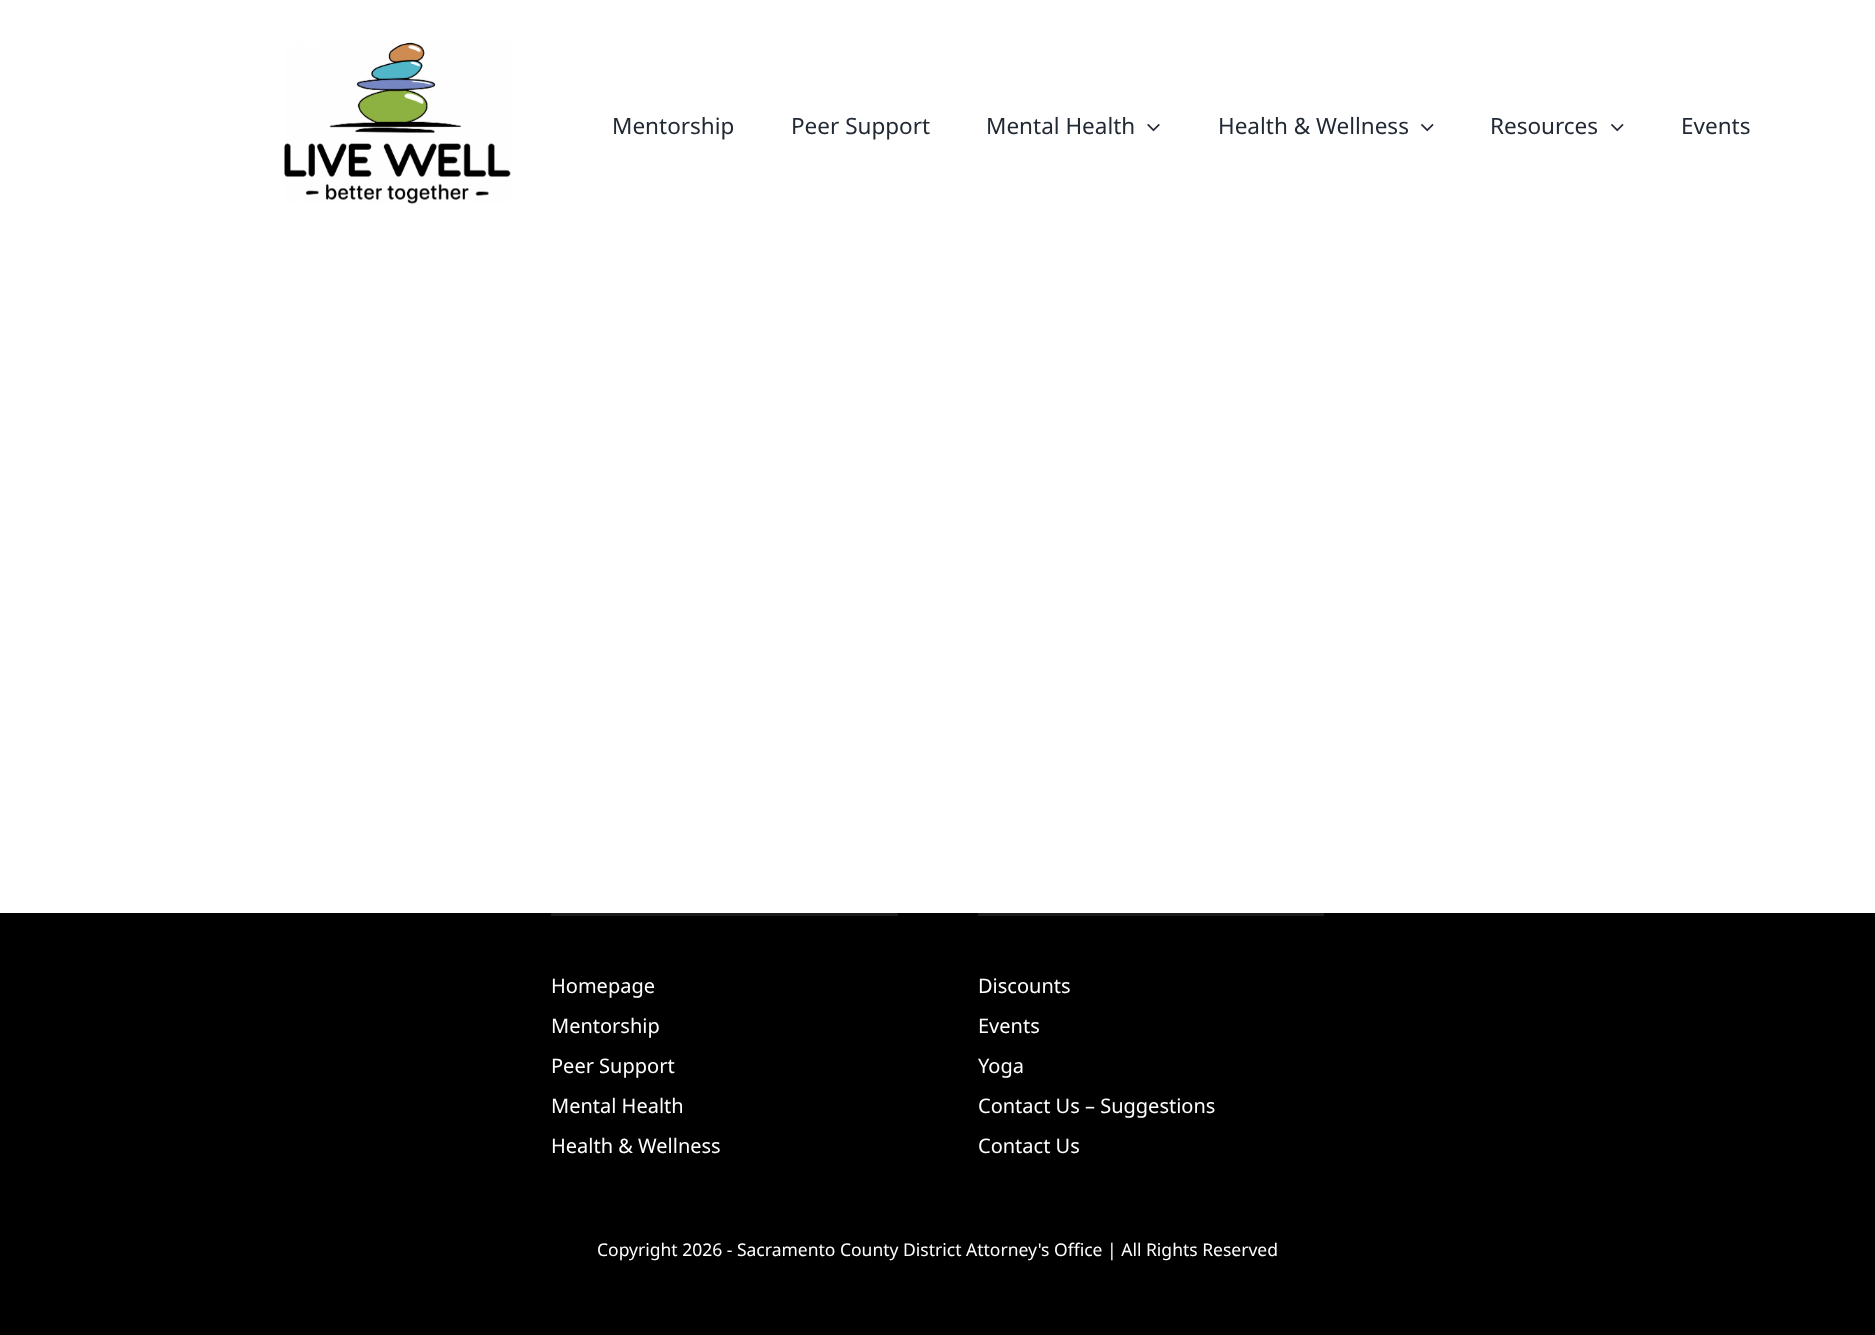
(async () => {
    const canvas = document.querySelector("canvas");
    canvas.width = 1875;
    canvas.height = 1335;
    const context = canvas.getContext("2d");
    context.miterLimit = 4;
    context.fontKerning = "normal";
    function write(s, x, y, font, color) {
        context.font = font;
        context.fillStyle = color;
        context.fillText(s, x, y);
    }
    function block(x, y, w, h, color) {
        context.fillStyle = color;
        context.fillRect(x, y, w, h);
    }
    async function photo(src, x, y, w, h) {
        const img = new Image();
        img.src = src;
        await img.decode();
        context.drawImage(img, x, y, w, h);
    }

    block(0, 0, 1875, 1335, "rgb(255, 255, 255)");
    await photo("media/1.png", 284, 42, 227, 162);
    write("Mentorship", 612, 134, "22.5px Noto Sans", "rgb(33, 41, 52)");
    write("Peer Support", 791, 134, "22.5px Noto Sans", "rgb(33, 41, 52)");
    write("Mental Health", 986, 134, "22.5px Noto Sans", "rgb(33, 41, 52)");
    await photo("media/2.png", 1147, 124, 13, 8);
    write("Health & Wellness", 1218, 134, "22.5px Noto Sans", "rgb(33, 41, 52)");
    await photo("media/3.png", 1421, 124, 13, 8);
    write("Resources", 1490, 134, "22.5px Noto Sans", "rgb(33, 41, 52)");
    await photo("media/3.png", 1611, 124, 13, 8);
    write("Events", 1681, 134, "22.5px Noto Sans", "rgb(33, 41, 52)");
    block(0, 913, 1875, 422, "rgb(0, 0, 0)");
    block(551, 913, 347, 3, "rgb(26, 26, 26)");
    write("Homepage", 551, 993, "20px Noto Sans", "rgb(255, 255, 255)");
    write("Mentorship", 551, 1033, "20px Noto Sans", "rgb(255, 255, 255)");
    write("Peer Support", 551, 1073, "20px Noto Sans", "rgb(255, 255, 255)");
    write("Mental Health", 551, 1113, "20px Noto Sans", "rgb(255, 255, 255)");
    write("Health & Wellness", 551, 1153, "20px Noto Sans", "rgb(255, 255, 255)");
    block(978, 913, 346, 3, "rgb(26, 26, 26)");
    write("Discounts", 978, 993, "20px Noto Sans", "rgb(255, 255, 255)");
    write("Events", 978, 1033, "20px Noto Sans", "rgb(255, 255, 255)");
    write("Yoga", 978, 1073, "20px Noto Sans", "rgb(255, 255, 255)");
    write("Contact Us – Suggestions", 978, 1113, "20px Noto Sans", "rgb(255, 255, 255)");
    write("Contact Us", 978, 1153, "20px Noto Sans", "rgb(255, 255, 255)");
    write("Copyright 2026 - Sacramento County District Attorney's Office | All Rights Reserved", 597, 1256, "17.5px Noto Sans", "rgb(255, 255, 255)");
})();
